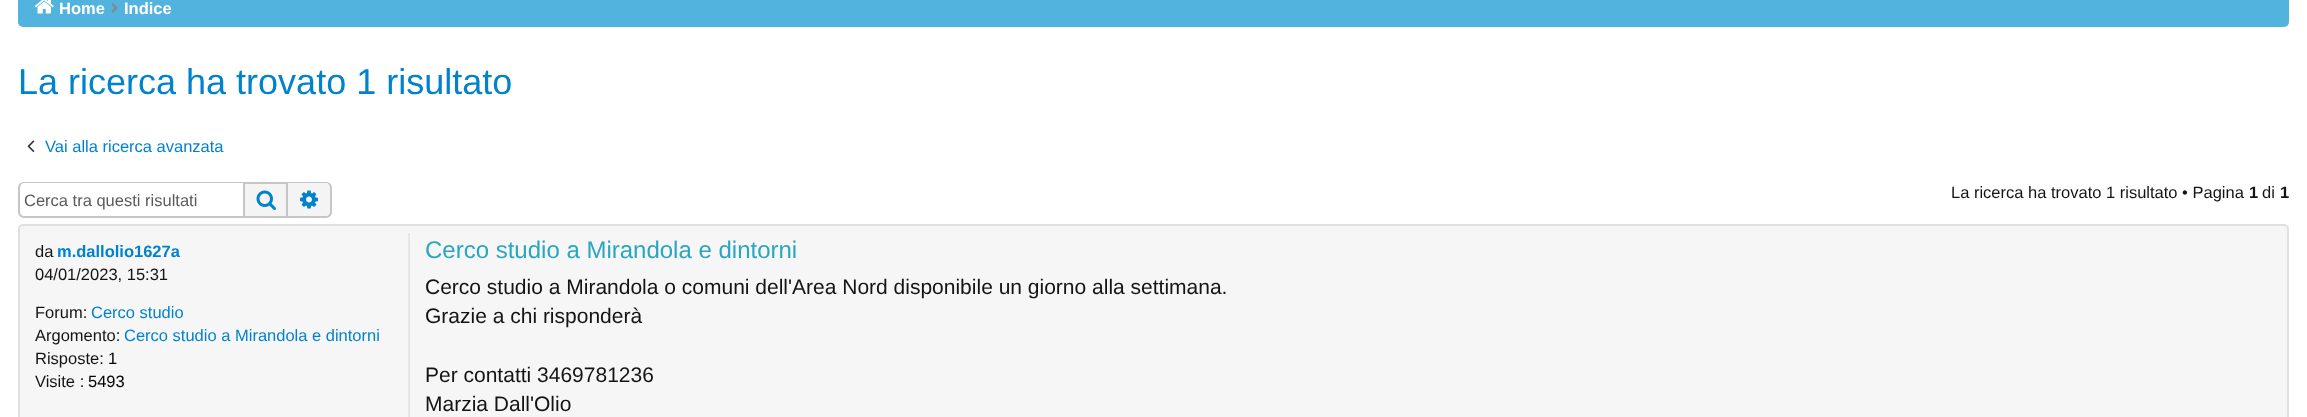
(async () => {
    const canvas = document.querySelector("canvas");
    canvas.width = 2307;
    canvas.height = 417;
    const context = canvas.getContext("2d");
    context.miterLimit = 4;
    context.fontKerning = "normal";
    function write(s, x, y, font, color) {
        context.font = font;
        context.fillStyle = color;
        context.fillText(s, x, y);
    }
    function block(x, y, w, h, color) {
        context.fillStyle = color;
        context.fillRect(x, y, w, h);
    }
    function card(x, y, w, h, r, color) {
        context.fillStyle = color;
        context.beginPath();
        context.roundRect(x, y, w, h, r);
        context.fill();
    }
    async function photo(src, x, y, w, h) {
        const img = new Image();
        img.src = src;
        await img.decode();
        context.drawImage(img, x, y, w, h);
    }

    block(0, 0, 2307, 417, "rgb(255, 255, 255)");
    card(18, -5, 2271, 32, 5, "rgb(82, 179, 222)");
    await photo("media/1.png", 34, 0, 20, 14);
    write("Home", 59, 14, "bold 16.5px Liberation Sans", "rgb(255, 255, 255)");
    await photo("media/2.png", 111, 3, 7, 10);
    write("Indice", 124, 14, "bold 16.5px Liberation Sans", "rgb(255, 255, 255)");
    write("La ricerca ha trovato 1 risultato", 18, 94, "36px Liberation Sans", "rgb(0, 130, 205)");
    await photo("media/3.png", 27, 140, 8, 12);
    write("Vai alla ricerca avanzata", 45, 152, "16.5px Liberation Sans", "rgb(0, 130, 205)");
    context.fillStyle = "rgb(198, 198, 198)";
    context.beginPath();
    context.moveTo(24, 182);
    context.lineTo(243, 182);
    context.lineTo(243, 218);
    context.lineTo(24, 218);
    context.bezierCurveTo(21, 218, 18, 215, 18, 212);
    context.lineTo(18, 188);
    context.bezierCurveTo(18, 184, 21, 182, 24, 182);
    context.closePath();
    context.moveTo(24, 183);
    context.lineTo(243, 183);
    context.lineTo(243, 216);
    context.lineTo(24, 216);
    context.bezierCurveTo(22, 216, 20, 214, 20, 212);
    context.lineTo(20, 188);
    context.bezierCurveTo(20, 185, 22, 183, 24, 183);
    context.closePath();
    context.fill("evenodd");
    write("Cerca tra questi risultati", 24, 206, "16.5px Liberation Sans", "rgb(91, 91, 91)");
    context.fillStyle = "rgb(244, 244, 244)";
    context.beginPath();
    context.rect(244, 183, 43, 34);
    context.fill();
    context.strokeStyle = "rgb(198, 198, 198)";
    context.lineWidth = 2;
    context.stroke();
    await photo("media/4.png", 256, 190, 20, 20);
    context.beginPath();
    context.roundRect(288, 183, 42, 33, [0, 5, 5, 0]);
    context.fill();
    context.fillStyle = "rgb(198, 198, 198)";
    context.beginPath();
    context.moveTo(288, 182);
    context.lineTo(326, 182);
    context.bezierCurveTo(329, 182, 332, 184, 332, 188);
    context.lineTo(332, 212);
    context.bezierCurveTo(332, 215, 329, 218, 326, 218);
    context.lineTo(288, 218);
    context.closePath();
    context.moveTo(288, 183);
    context.lineTo(326, 183);
    context.bezierCurveTo(328, 183, 330, 185, 330, 188);
    context.lineTo(330, 212);
    context.bezierCurveTo(330, 214, 328, 216, 326, 216);
    context.lineTo(288, 216);
    context.closePath();
    context.fill("evenodd");
    await photo("media/5.png", 300, 190, 18, 19);
    write("La ricerca ha trovato 1 risultato • Pagina", 1951, 198, "16.5px Liberation Sans", "rgb(20, 20, 20)");
    write("1", 2249, 198, "bold 16.5px Liberation Sans", "rgb(20, 20, 20)");
    write("di", 2262, 198, "16.5px Liberation Sans", "rgb(20, 20, 20)");
    write("1", 2280, 198, "bold 16.5px Liberation Sans", "rgb(20, 20, 20)");
    context.fillStyle = "rgb(246, 246, 246)";
    context.beginPath();
    context.roundRect(19, 225, 2269, 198, 4);
    context.fill();
    context.strokeStyle = "rgb(224, 224, 224)";
    context.stroke();
    block(408, 233, 2, 184, "rgb(231, 231, 231)");
    write("da", 35, 257, "16.5px Liberation Sans", "rgb(20, 20, 20)");
    write("m.dallolio1627a", 57, 257, "bold 16.5px Liberation Sans", "rgb(0, 130, 205)");
    write("04/01/2023, 15:31", 35, 280, "16.5px Liberation Sans", "rgb(20, 20, 20)");
    write("Forum:", 35, 318, "16.5px Liberation Sans", "rgb(20, 20, 20)");
    write("Cerco studio", 91, 318, "16.5px Liberation Sans", "rgb(0, 130, 205)");
    write("Argomento:", 35, 341, "16.5px Liberation Sans", "rgb(20, 20, 20)");
    write("Cerco studio a Mirandola e dintorni", 124, 341, "16.5px Liberation Sans", "rgb(0, 130, 205)");
    write("Risposte:", 35, 364, "16.5px Liberation Sans", "rgb(20, 20, 20)");
    write("1", 108, 364, "16.5px Liberation Sans", "rgb(0, 0, 0)");
    write("Visite :", 35, 387, "16.5px Liberation Sans", "rgb(20, 20, 20)");
    write("5493", 88, 387, "16.5px Liberation Sans", "rgb(0, 0, 0)");
    write("Cerco studio a Mirandola e dintorni", 425, 258, "24px Liberation Sans", "rgb(43, 166, 192)");
    write("Cerco studio a Mirandola o comuni dell'Area Nord disponibile un giorno alla settimana.", 425, 294, "21px Liberation Sans", "rgb(20, 20, 20)");
    write("Grazie a chi risponderà", 425, 323, "21px Liberation Sans", "rgb(20, 20, 20)");
    write("Per contatti 3469781236", 425, 382, "21px Liberation Sans", "rgb(20, 20, 20)");
    write("Marzia Dall'Olio", 425, 411, "21px Liberation Sans", "rgb(20, 20, 20)");
})();
